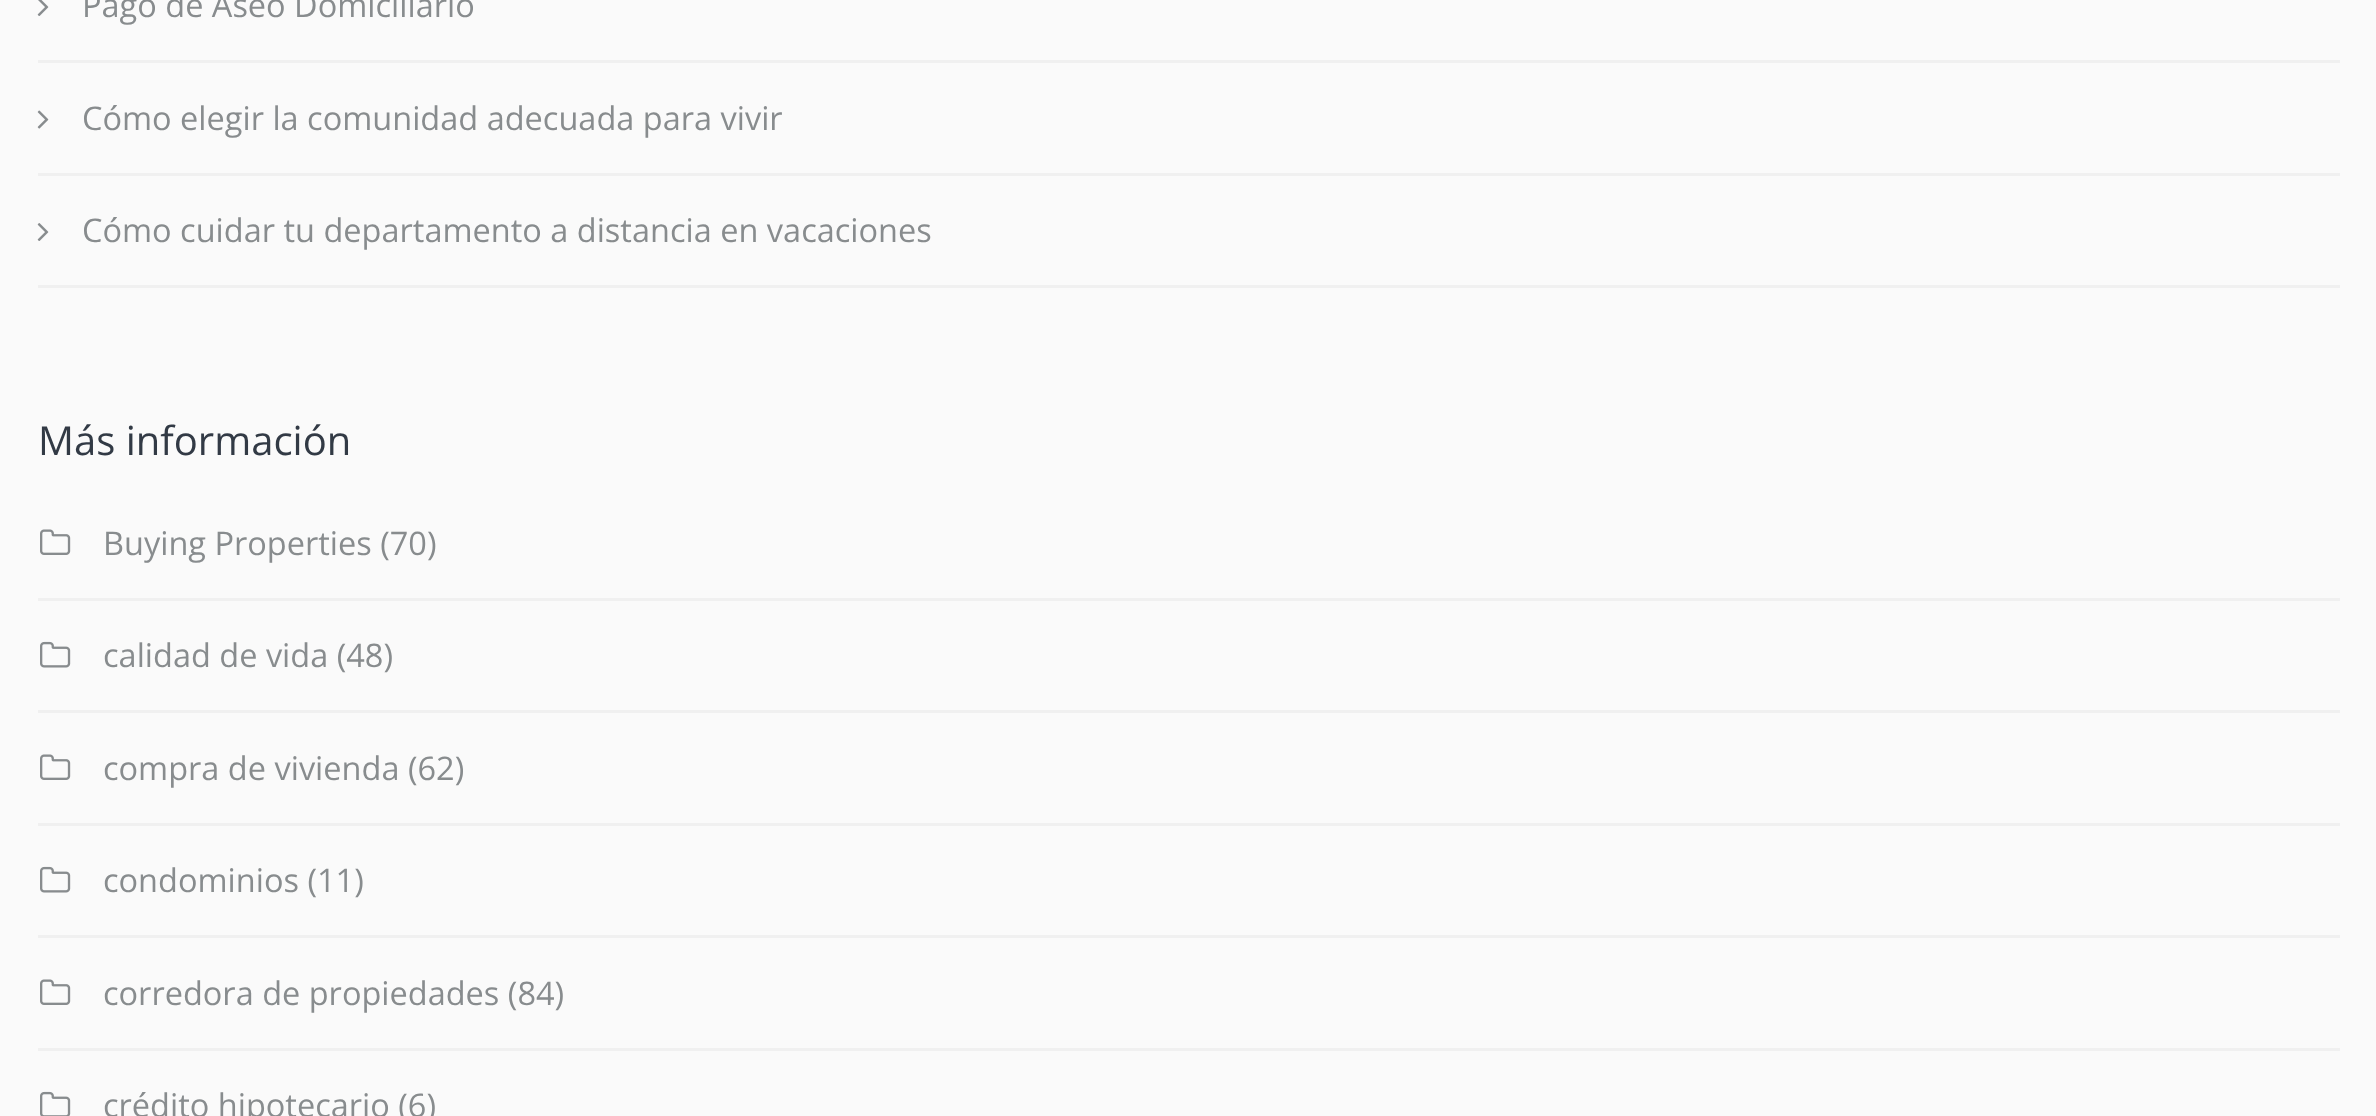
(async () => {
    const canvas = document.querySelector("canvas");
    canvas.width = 2376;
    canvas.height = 1116;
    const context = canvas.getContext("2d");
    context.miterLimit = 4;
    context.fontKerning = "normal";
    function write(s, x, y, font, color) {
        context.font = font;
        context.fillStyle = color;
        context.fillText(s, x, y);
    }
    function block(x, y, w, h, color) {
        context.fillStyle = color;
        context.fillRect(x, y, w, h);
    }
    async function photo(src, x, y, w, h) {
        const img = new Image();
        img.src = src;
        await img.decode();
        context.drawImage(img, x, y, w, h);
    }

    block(0, 0, 2376, 1116, "rgb(250, 250, 250)");
    block(38, 60, 2302, 3, "rgb(240, 240, 240)");
    await photo("media/1.png", 37, 0, 12, 16);
    write("Pago de Aseo Domiciliario", 82, 17, "32.5px Open Sans", "rgb(136, 140, 142)");
    block(38, 173, 2302, 3, "rgb(240, 240, 240)");
    await photo("media/2.png", 37, 110, 12, 19);
    write("Cómo elegir la comunidad adecuada para vivir", 82, 130, "32.5px Open Sans", "rgb(136, 140, 142)");
    block(38, 285, 2302, 3, "rgb(240, 240, 240)");
    await photo("media/3.png", 37, 223, 12, 18);
    write("Cómo cuidar tu departamento a distancia en vacaciones", 82, 242, "32.5px Open Sans", "rgb(136, 140, 142)");
    write("Más información", 38, 455, "40px Open Sans", "rgb(50, 58, 69)");
    block(38, 598, 2302, 3, "rgb(240, 240, 240)");
    await photo("media/4.png", 40, 529, 31, 26);
    write("Buying Properties (70)", 103, 555, "32.5px Open Sans", "rgb(136, 140, 142)");
    block(38, 710, 2302, 3, "rgb(240, 240, 240)");
    await photo("media/5.png", 40, 641, 31, 27);
    write("calidad de vida (48)", 103, 667, "32.5px Open Sans", "rgb(136, 140, 142)");
    block(38, 823, 2302, 3, "rgb(240, 240, 240)");
    await photo("media/4.png", 40, 754, 31, 26);
    write("compra de vivienda (62)", 103, 780, "32.5px Open Sans", "rgb(136, 140, 142)");
    block(38, 935, 2302, 3, "rgb(240, 240, 240)");
    await photo("media/5.png", 40, 866, 31, 27);
    write("condominios (11)", 103, 892, "32.5px Open Sans", "rgb(136, 140, 142)");
    block(38, 1048, 2302, 3, "rgb(240, 240, 240)");
    await photo("media/4.png", 40, 979, 31, 26);
    write("corredora de propiedades (84)", 103, 1005, "32.5px Open Sans", "rgb(136, 140, 142)");
    await photo("media/6.png", 40, 1091, 31, 25);
    write("crédito hipotecario (6)", 103, 1117, "32.5px Open Sans", "rgb(136, 140, 142)");
})();
